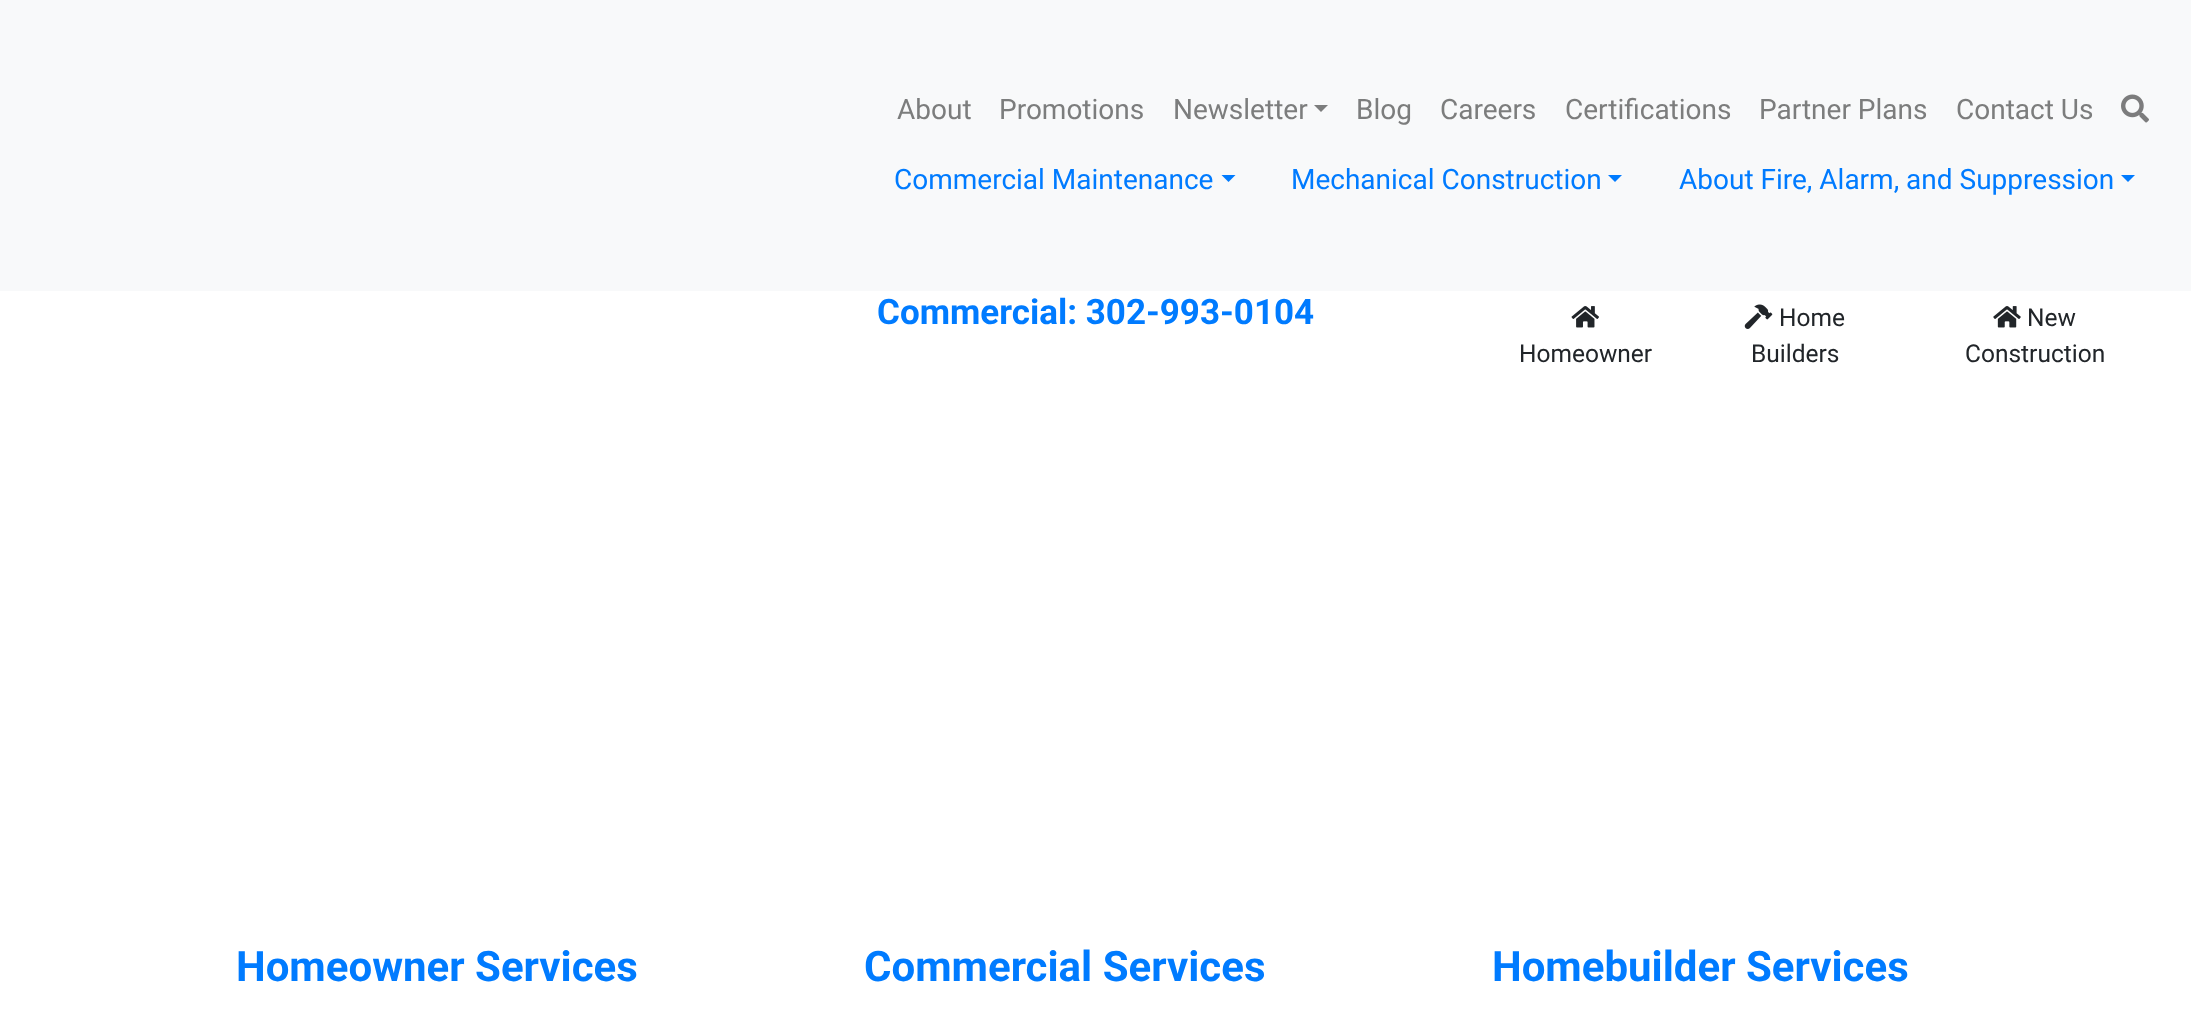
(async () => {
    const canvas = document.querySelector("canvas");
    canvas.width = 2191;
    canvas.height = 1031;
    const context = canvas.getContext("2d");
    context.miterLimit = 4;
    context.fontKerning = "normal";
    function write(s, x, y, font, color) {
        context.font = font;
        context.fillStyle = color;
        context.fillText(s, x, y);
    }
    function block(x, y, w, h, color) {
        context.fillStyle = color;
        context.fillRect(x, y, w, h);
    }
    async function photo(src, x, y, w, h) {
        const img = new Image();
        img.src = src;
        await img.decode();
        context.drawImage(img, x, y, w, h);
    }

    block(0, 0, 2191, 1031, "rgb(255, 255, 255)");
    block(0, 0, 2191, 291, "rgb(248, 249, 250)");
    write("About", 897, 119, "28px Roboto", "rgb(124, 125, 125)");
    write("Promotions", 999, 119, "28px Roboto", "rgb(124, 125, 125)");
    write("Newsletter", 1173, 119, "28px Roboto", "rgb(124, 125, 125)");
    context.beginPath();
    context.moveTo(1314, 105);
    context.lineTo(1328, 105);
    context.lineTo(1321, 112);
    context.closePath();
    context.fill();
    write("Blog", 1356, 119, "28px Roboto", "rgb(124, 125, 125)");
    write("Careers", 1440, 119, "28px Roboto", "rgb(124, 125, 125)");
    write("Certifications", 1565, 119, "28px Roboto", "rgb(124, 125, 125)");
    write("Partner Plans", 1759, 119, "28px Roboto", "rgb(124, 125, 125)");
    write("Contact Us", 1956, 119, "28px Roboto", "rgb(124, 125, 125)");
    await photo("media/1.png", 2121, 94, 28, 29);
    write("Commercial Maintenance", 894, 189, "28px Roboto", "rgb(0, 123, 255)");
    context.beginPath();
    context.moveTo(1221.5, 175);
    context.lineTo(1235.5, 175);
    context.lineTo(1228.5, 182);
    context.closePath();
    context.fill();
    write("Mechanical Construction", 1291, 189, "28px Roboto", "rgb(0, 123, 255)");
    context.beginPath();
    context.moveTo(1608, 175);
    context.lineTo(1622, 175);
    context.lineTo(1615, 182);
    context.closePath();
    context.fill();
    write("About Fire, Alarm, and Suppression", 1679, 189, "28px Roboto", "rgb(0, 123, 255)");
    context.beginPath();
    context.moveTo(2121, 175);
    context.lineTo(2135, 175);
    context.lineTo(2128, 182);
    context.closePath();
    context.fill();
    write("Commercial: 302-993-0104", 877, 324, "bold 35px Roboto", "rgb(0, 123, 255)");
    await photo("media/2.png", 1571, 306, 28, 22);
    write("Homeowner", 1519, 362, "24.5px Roboto", "rgb(33, 37, 41)");
    await photo("media/3.png", 1744, 304, 29, 25);
    write("Home", 1779, 326, "24.5px Roboto", "rgb(33, 37, 41)");
    write("Builders", 1751, 362, "24.5px Roboto", "rgb(33, 37, 41)");
    await photo("media/4.png", 1993, 306, 28, 22);
    write("New", 2027, 326, "24.5px Roboto", "rgb(33, 37, 41)");
    write("Construction", 1965, 362, "24.5px Roboto", "rgb(33, 37, 41)");
    write("Homeowner Services", 236, 981, "bold 42px Roboto", "rgb(0, 123, 255)");
    write("Commercial Services", 864, 981, "bold 42px Roboto", "rgb(0, 123, 255)");
    write("Homebuilder Services", 1492, 981, "bold 42px Roboto", "rgb(0, 123, 255)");
})();
